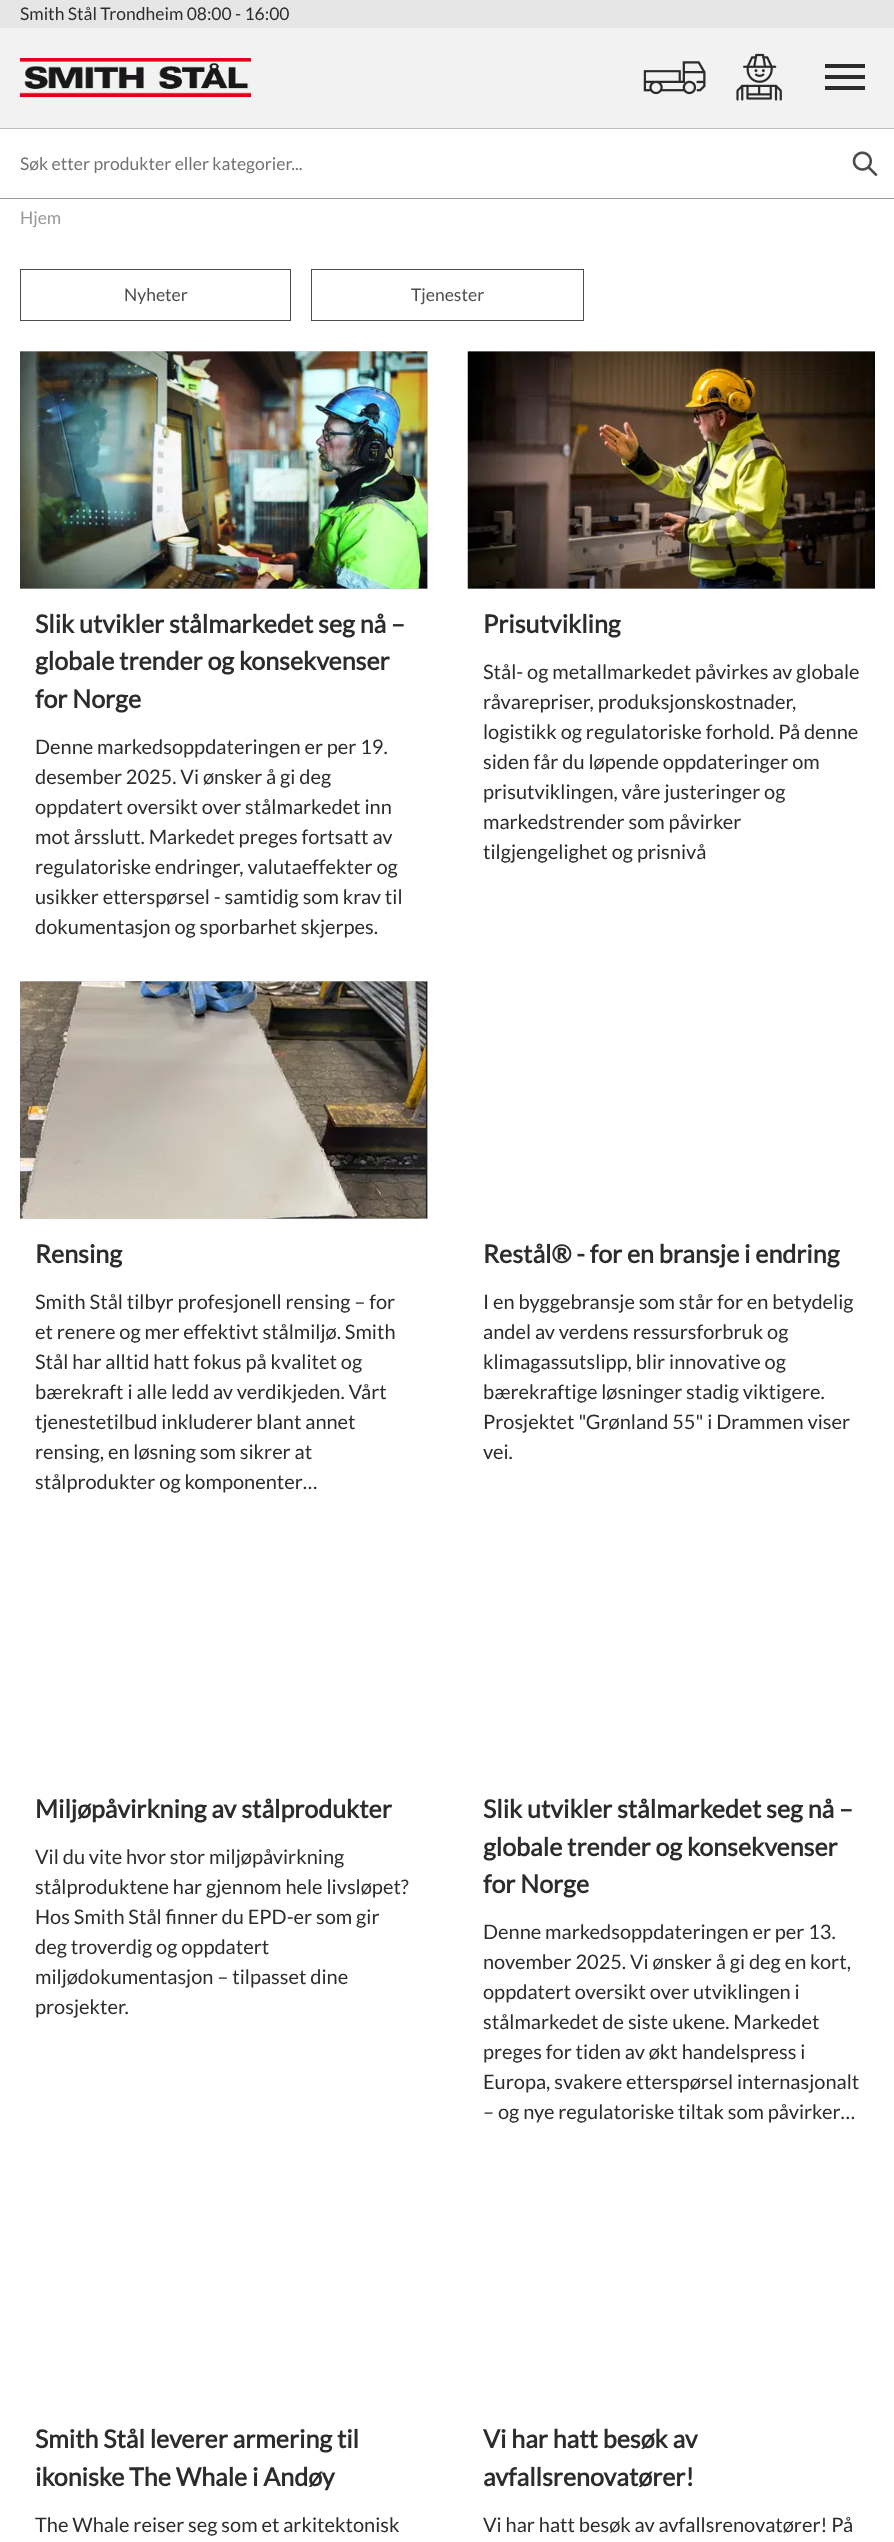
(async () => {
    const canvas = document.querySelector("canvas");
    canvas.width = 894;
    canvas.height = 2542;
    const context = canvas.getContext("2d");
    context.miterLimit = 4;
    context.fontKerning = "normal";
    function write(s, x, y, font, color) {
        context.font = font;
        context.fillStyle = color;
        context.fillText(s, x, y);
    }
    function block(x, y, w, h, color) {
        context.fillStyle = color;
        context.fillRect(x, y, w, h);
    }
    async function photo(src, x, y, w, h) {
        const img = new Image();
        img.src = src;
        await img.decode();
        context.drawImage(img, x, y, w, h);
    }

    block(0, 0, 894, 2542, "rgb(255, 255, 255)");
    block(0, 0, 894, 28, "rgb(230, 230, 230)");
    write("Smith Stål Trondheim 08:00 - 16:00", 20, 20, "17.5px Lato", "rgb(44, 44, 44)");
    block(0, 28, 894, 100, "rgb(242, 242, 242)");
    block(0, 128, 894, 1, "rgb(190, 191, 192)");
    await photo("media/1.png", 20, 58, 231, 40);
    await photo("media/2.png", 643, 61, 63, 34);
    await photo("media/3.png", 736, 53, 46, 48);
    context.fillStyle = "rgb(44, 44, 44)";
    context.beginPath();
    context.moveTo(865, 90);
    context.lineTo(865, 86);
    context.lineTo(825, 86);
    context.lineTo(825, 90);
    context.closePath();
    context.moveTo(865, 79);
    context.lineTo(865, 75);
    context.lineTo(825, 75);
    context.lineTo(825, 79);
    context.closePath();
    context.moveTo(825, 68);
    context.lineTo(865, 68);
    context.lineTo(865, 64);
    context.lineTo(825, 64);
    context.closePath();
    context.fill();
    block(0, 198, 894, 1, "rgb(153, 153, 153)");
    write("Søk etter produkter eller kategorier...", 20, 170, "17.5px Lato", "rgb(114, 114, 114)");
    await photo("media/4.png", 852, 151, 26, 25);
    write("Hjem", 20, 224, "17.5px Lato", "rgb(153, 153, 153)");
    context.strokeStyle = "rgb(77, 77, 77)";
    context.strokeRect(20.5, 269.5, 270, 51);
    write("Nyheter", 124, 301, "17.5px Lato", "rgb(77, 77, 77)");
    context.strokeRect(311.5, 269.5, 272, 51);
    write("Tjenester", 411, 301, "17.5px Lato", "rgb(77, 77, 77)");
    block(20, 351, 408, 238, "rgb(208, 208, 208)");
    await photo("media/5.png", 20, 351, 408, 238);
    write("Slik utvikler stålmarkedet seg nå –", 35, 633, "bold 25px Lato", "rgb(44, 44, 44)");
    write("globale trender og konsekvenser", 35, 670, "bold 25px Lato", "rgb(44, 44, 44)");
    write("for Norge", 35, 708, "bold 25px Lato", "rgb(44, 44, 44)");
    write("Denne markedsoppdateringen er per 19.", 35, 754, "20px Lato", "rgb(44, 44, 44)");
    write("desember 2025. Vi ønsker å gi deg", 35, 784, "20px Lato", "rgb(44, 44, 44)");
    write("oppdatert oversikt over stålmarkedet inn", 35, 814, "20px Lato", "rgb(44, 44, 44)");
    write("mot årsslutt. Markedet preges fortsatt av", 35, 844, "20px Lato", "rgb(44, 44, 44)");
    write("regulatoriske endringer, valutaeffekter og", 35, 874, "20px Lato", "rgb(44, 44, 44)");
    write("usikker etterspørsel - samtidig som krav til", 35, 904, "20px Lato", "rgb(44, 44, 44)");
    write("dokumentasjon og sporbarhet skjerpes.", 35, 934, "20px Lato", "rgb(44, 44, 44)");
    block(468, 351, 407, 238, "rgb(208, 208, 208)");
    await photo("media/6.png", 467, 351, 408, 238);
    write("Prisutvikling", 483, 633, "bold 25px Lato", "rgb(44, 44, 44)");
    write("Stål- og metallmarkedet påvirkes av globale", 483, 679, "20px Lato", "rgb(44, 44, 44)");
    write("råvarepriser, produksjonskostnader,", 483, 709, "20px Lato", "rgb(44, 44, 44)");
    write("logistikk og regulatoriske forhold. På denne", 483, 739, "20px Lato", "rgb(44, 44, 44)");
    write("siden får du løpende oppdateringer om", 483, 769, "20px Lato", "rgb(44, 44, 44)");
    write("prisutviklingen, våre justeringer og", 483, 799, "20px Lato", "rgb(44, 44, 44)");
    write("markedstrender som påvirker", 483, 829, "20px Lato", "rgb(44, 44, 44)");
    write("tilgjengelighet og prisnivå", 483, 859, "20px Lato", "rgb(44, 44, 44)");
    block(20, 981, 408, 238, "rgb(208, 208, 208)");
    await photo("media/7.png", 20, 981, 408, 238);
    write("Rensing", 35, 1263, "bold 25px Lato", "rgb(44, 44, 44)");
    write("Smith Stål tilbyr profesjonell rensing – for", 35, 1309, "20px Lato", "rgb(44, 44, 44)");
    write("et renere og mer effektivt stålmiljø. Smith", 35, 1339, "20px Lato", "rgb(44, 44, 44)");
    write("Stål har alltid hatt fokus på kvalitet og", 35, 1369, "20px Lato", "rgb(44, 44, 44)");
    write("bærekraft i alle ledd av verdikjeden. Vårt", 35, 1399, "20px Lato", "rgb(44, 44, 44)");
    write("tjenestetilbud inkluderer blant annet", 35, 1429, "20px Lato", "rgb(44, 44, 44)");
    write("rensing, en løsning som sikrer at", 35, 1459, "20px Lato", "rgb(44, 44, 44)");
    write("stålprodukter og komponenter…", 35, 1489, "20px Lato", "rgb(44, 44, 44)");
    write("Restål® - for en bransje i endring", 483, 1263, "bold 25px Lato", "rgb(44, 44, 44)");
    write("I en byggebransje som står for en betydelig", 483, 1309, "20px Lato", "rgb(44, 44, 44)");
    write("andel av verdens ressursforbruk og", 483, 1339, "20px Lato", "rgb(44, 44, 44)");
    write("klimagassutslipp, blir innovative og", 483, 1369, "20px Lato", "rgb(44, 44, 44)");
    write("bærekraftige løsninger stadig viktigere.", 483, 1399, "20px Lato", "rgb(44, 44, 44)");
    write("Prosjektet \"Grønland 55\" i Drammen viser", 483, 1429, "20px Lato", "rgb(44, 44, 44)");
    write("vei.", 483, 1459, "20px Lato", "rgb(44, 44, 44)");
    write("Miljøpåvirkning av stålprodukter", 35, 1818, "bold 25px Lato", "rgb(44, 44, 44)");
    write("Vil du vite hvor stor miljøpåvirkning", 35, 1864, "20px Lato", "rgb(44, 44, 44)");
    write("stålproduktene har gjennom hele livsløpet?", 35, 1894, "20px Lato", "rgb(44, 44, 44)");
    write("Hos Smith Stål finner du EPD-er som gir", 35, 1924, "20px Lato", "rgb(44, 44, 44)");
    write("deg troverdig og oppdatert", 35, 1954, "20px Lato", "rgb(44, 44, 44)");
    write("miljødokumentasjon – tilpasset dine", 35, 1984, "20px Lato", "rgb(44, 44, 44)");
    write("prosjekter.", 35, 2014, "20px Lato", "rgb(44, 44, 44)");
    write("Slik utvikler stålmarkedet seg nå –", 483, 1818, "bold 25px Lato", "rgb(44, 44, 44)");
    write("globale trender og konsekvenser", 483, 1856, "bold 25px Lato", "rgb(44, 44, 44)");
    write("for Norge", 483, 1893, "bold 25px Lato", "rgb(44, 44, 44)");
    write("Denne markedsoppdateringen er per 13.", 483, 1939, "20px Lato", "rgb(44, 44, 44)");
    write("november 2025. Vi ønsker å gi deg en kort,", 483, 1969, "20px Lato", "rgb(44, 44, 44)");
    write("oppdatert oversikt over utviklingen i", 483, 1999, "20px Lato", "rgb(44, 44, 44)");
    write("stålmarkedet de siste ukene. Markedet", 483, 2029, "20px Lato", "rgb(44, 44, 44)");
    write("preges for tiden av økt handelspress i", 483, 2059, "20px Lato", "rgb(44, 44, 44)");
    write("Europa, svakere etterspørsel internasjonalt", 483, 2089, "20px Lato", "rgb(44, 44, 44)");
    write("– og nye regulatoriske tiltak som påvirker…", 483, 2119, "20px Lato", "rgb(44, 44, 44)");
    write("Smith Stål leverer armering til", 35, 2448, "bold 25px Lato", "rgb(44, 44, 44)");
    write("ikoniske The Whale i Andøy", 35, 2486, "bold 25px Lato", "rgb(44, 44, 44)");
    write("The Whale reiser seg som et arkitektonisk", 35, 2532, "20px Lato", "rgb(44, 44, 44)");
    write("Vi har hatt besøk av", 483, 2448, "bold 25px Lato", "rgb(44, 44, 44)");
    write("avfallsrenovatører!", 483, 2486, "bold 25px Lato", "rgb(44, 44, 44)");
    write("Vi har hatt besøk av avfallsrenovatører! På", 483, 2532, "20px Lato", "rgb(44, 44, 44)");
})();
